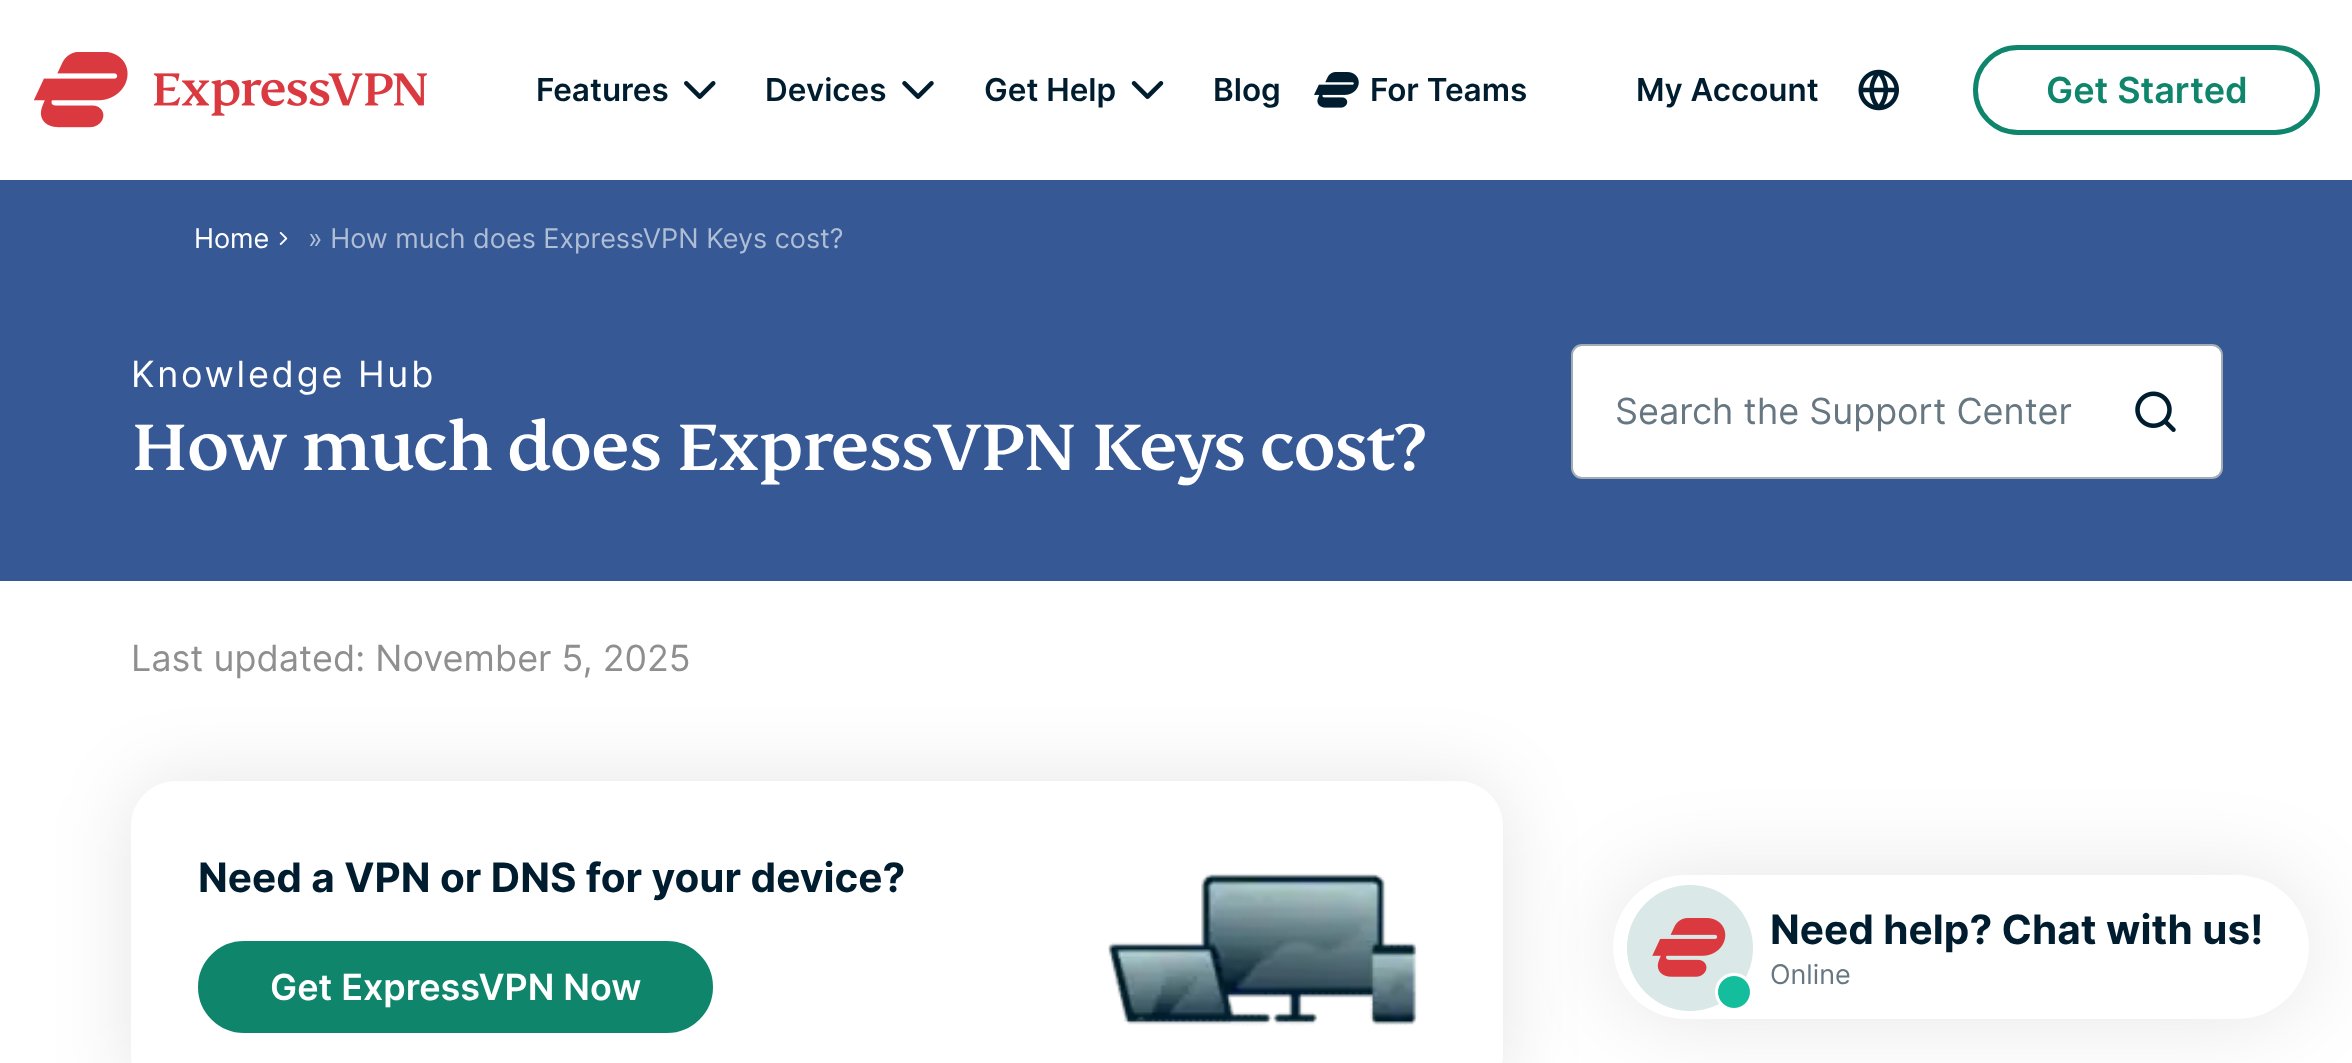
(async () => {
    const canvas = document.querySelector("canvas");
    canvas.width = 2352;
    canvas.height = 1063;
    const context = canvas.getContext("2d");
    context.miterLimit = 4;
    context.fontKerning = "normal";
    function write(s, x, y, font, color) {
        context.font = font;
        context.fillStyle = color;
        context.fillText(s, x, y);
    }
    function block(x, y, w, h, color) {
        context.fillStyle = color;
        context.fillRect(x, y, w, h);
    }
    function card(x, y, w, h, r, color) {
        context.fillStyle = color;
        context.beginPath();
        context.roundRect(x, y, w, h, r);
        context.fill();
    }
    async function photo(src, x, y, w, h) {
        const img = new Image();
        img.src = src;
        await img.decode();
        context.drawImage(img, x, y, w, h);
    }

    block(0, 0, 2352, 1063, "rgb(255, 255, 255)");
    await photo("media/1.png", 34, 52, 394, 76);
    write("Features", 536, 101, "600 31.5px Inter", "rgb(0, 29, 47)");
    await photo("media/2.png", 684, 81, 32, 18);
    write("Devices", 765, 101, "600 31.5px Inter", "rgb(0, 29, 47)");
    await photo("media/3.png", 902, 81, 32, 18);
    write("Get Help", 984, 101, "600 31.5px Inter", "rgb(0, 29, 47)");
    await photo("media/4.png", 1131, 81, 33, 18);
    write("Blog", 1213, 101, "600 31.5px Inter", "rgb(0, 29, 47)");
    await photo("media/5.png", 1314, 72, 45, 36);
    write("For Teams", 1370, 101, "600 31.5px Inter", "rgb(0, 29, 47)");
    write("My Account", 1636, 101, "600 31.5px Inter", "rgb(0, 29, 47)");
    await photo("media/6.png", 1858, 69, 41, 42);
    context.beginPath();
    context.roundRect(1975.5, 47.5, 342, 85, 42.5);
    context.strokeStyle = "rgb(15, 134, 108)";
    context.lineWidth = 5;
    context.stroke();
    write("Get Started", 2046, 103, "600 36px Inter", "rgb(15, 134, 108)");
    block(0, 180, 2352, 401, "rgb(54, 89, 150)");
    write("Home", 194, 248, "27px Inter", "rgb(255, 255, 255)");
    await photo("media/7.png", 279, 232, 9, 13);
    write("» How much does ExpressVPN Keys cost?", 308, 248, "27px Inter", "rgb(175, 189, 213)");
    context.letterSpacing = "2.75px";
    write("Knowledge Hub", 131, 387, "36px Inter", "rgb(255, 255, 255)");
    context.letterSpacing = "-1.1px";
    write("How much does ExpressVPN Keys cost?", 131, 470, "500 72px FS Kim", "rgb(255, 255, 255)");
    context.beginPath();
    context.roundRect(1572, 345, 650, 133, 10);
    context.fill();
    context.strokeStyle = "rgb(162, 172, 179)";
    context.lineWidth = 2;
    context.stroke();
    context.letterSpacing = "0px";
    write("Search the Support Center", 1615, 424, "36px Inter", "rgb(102, 119, 130)");
    await photo("media/8.png", 2135, 391, 41, 41);
    context.fillStyle = "rgba(0, 0, 0, 0.1)";
    context.filter = "blur(39.5px)";
    context.beginPath();
    context.roundRect(131, 781, 1372, 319, 45);
    context.fill();
    context.filter = "none";
    write("Last updated: November 5, 2025", 131, 671, "36px Inter", "rgb(143, 143, 143)");
    card(131, 781, 1372, 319, 45, "rgb(255, 255, 255)");
    write("Need a VPN or DNS for your device?", 198, 892, "bold 40.5px Inter", "rgb(0, 29, 47)");
    context.fillStyle = "rgb(15, 134, 108)";
    context.beginPath();
    context.roundRect(200.5, 943.5, 510, 87, 43.5);
    context.fill();
    context.strokeStyle = "rgb(15, 134, 108)";
    context.lineWidth = 5;
    context.stroke();
    write("Get ExpressVPN Now", 270, 1000, "600 36px Inter", "rgb(255, 255, 255)");
    await photo("media/9.png", 1107, 873, 311, 153);
    context.fillStyle = "rgba(0, 0, 0, 0.1)";
    context.filter = "blur(44.5px)";
    context.beginPath();
    context.roundRect(1613, 875, 696, 144, 72);
    context.fill();
    context.filter = "none";
    card(1613, 875, 696, 144, 72, "rgb(255, 255, 255)");
    await photo("media/10.png", 1627, 885, 126, 126);
    write("Need help? Chat with us!", 1770, 944, "bold 40.5px Inter", "rgb(0, 29, 47)");
    write("Online", 1770, 984, "27px Inter", "rgb(102, 119, 130)");
})();
